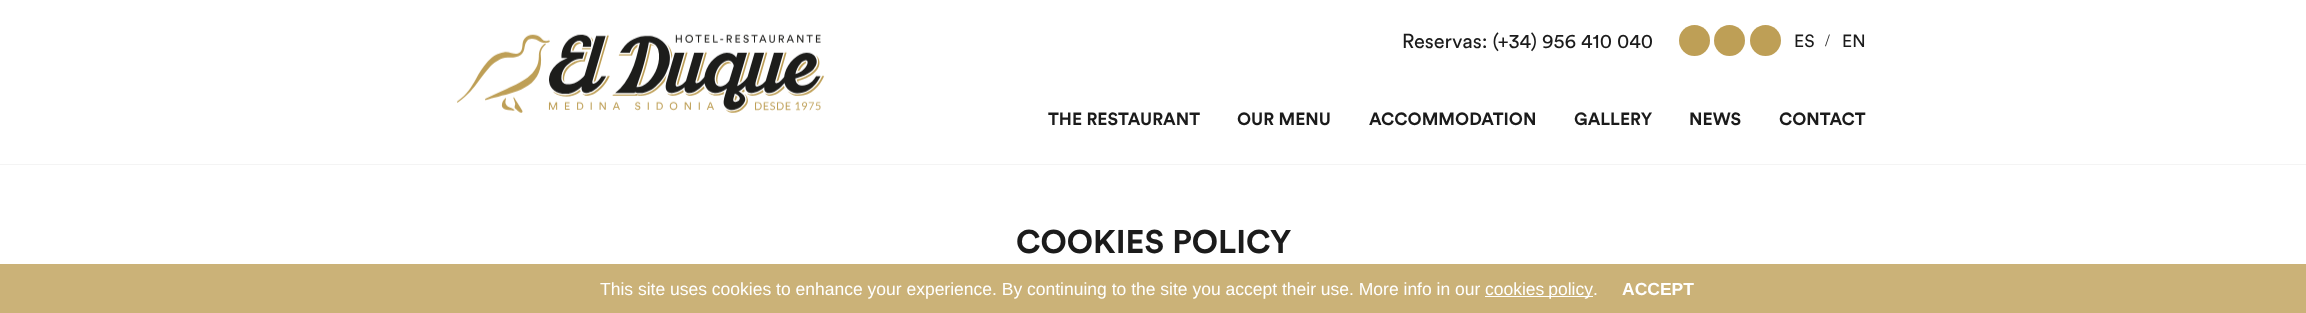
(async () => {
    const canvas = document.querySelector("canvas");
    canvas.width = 2306;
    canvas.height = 313;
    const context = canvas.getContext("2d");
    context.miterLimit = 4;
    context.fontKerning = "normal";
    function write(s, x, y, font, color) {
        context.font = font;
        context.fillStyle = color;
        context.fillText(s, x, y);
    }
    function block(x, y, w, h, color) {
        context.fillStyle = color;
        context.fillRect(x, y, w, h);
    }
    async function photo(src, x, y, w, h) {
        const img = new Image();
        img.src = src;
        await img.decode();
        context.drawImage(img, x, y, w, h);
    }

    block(0, 0, 2306, 313, "rgb(255, 255, 255)");
    block(0, 164, 2306, 1, "rgb(244, 244, 244)");
    await photo("media/1.png", 457, 34, 368, 79);
    write("Reservas: (+34) 956 410 040", 1402, 48, "20px Circular", "rgb(27, 27, 27)");
    context.fillStyle = "rgb(190, 159, 86)";
    context.beginPath();
    context.arc(1694.5, 40.5, 15.5, 0, Math.PI * 2);
    context.fill();
    context.beginPath();
    context.arc(1729.5, 40.5, 15.5, 0, Math.PI * 2);
    context.fill();
    context.beginPath();
    context.arc(1765.5, 40.5, 15.5, 0, Math.PI * 2);
    context.fill();
    write("ES", 1794, 47, "17.5px Circular", "rgb(27, 27, 27)");
    write("/", 1825, 46, "17.5px Liberation Serif", "rgb(27, 27, 27)");
    write("EN", 1842, 47, "17.5px Circular", "rgb(27, 27, 27)");
    write("THE RESTAURANT", 1048, 125, "bold 17.5px Circular", "rgb(27, 27, 27)");
    write("OUR MENU", 1237, 125, "bold 17.5px Circular", "rgb(27, 27, 27)");
    write("ACCOMMODATION", 1369, 125, "bold 17.5px Circular", "rgb(27, 27, 27)");
    write("GALLERY", 1574, 125, "bold 17.5px Circular", "rgb(27, 27, 27)");
    write("NEWS", 1689, 125, "bold 17.5px Circular", "rgb(27, 27, 27)");
    write("CONTACT", 1779, 125, "bold 17.5px Circular", "rgb(27, 27, 27)");
    write("COOKIES POLICY", 1016, 253, "bold 32.5px Circular", "rgb(27, 27, 27)");
    block(0, 264, 2306, 49, "rgb(203, 178, 120)");
    write("This site uses cookies to enhance your experience. By continuing to the site you accept their use. More info in our", 600, 295, "17.5px Liberation Sans", "rgb(255, 255, 255)");
    block(1485, 296, 108, 1, "rgb(255, 255, 255)");
    context.wordSpacing = "-1px";
    write("cookies policy", 1485, 295, "17.5px Liberation Sans", "rgb(255, 255, 255)");
    context.wordSpacing = "0px";
    write(".", 1593, 295, "17.5px Liberation Sans", "rgb(255, 255, 255)");
    write("ACCEPT", 1622, 295, "bold 17.5px Liberation Sans", "rgb(255, 255, 255)");
})();
